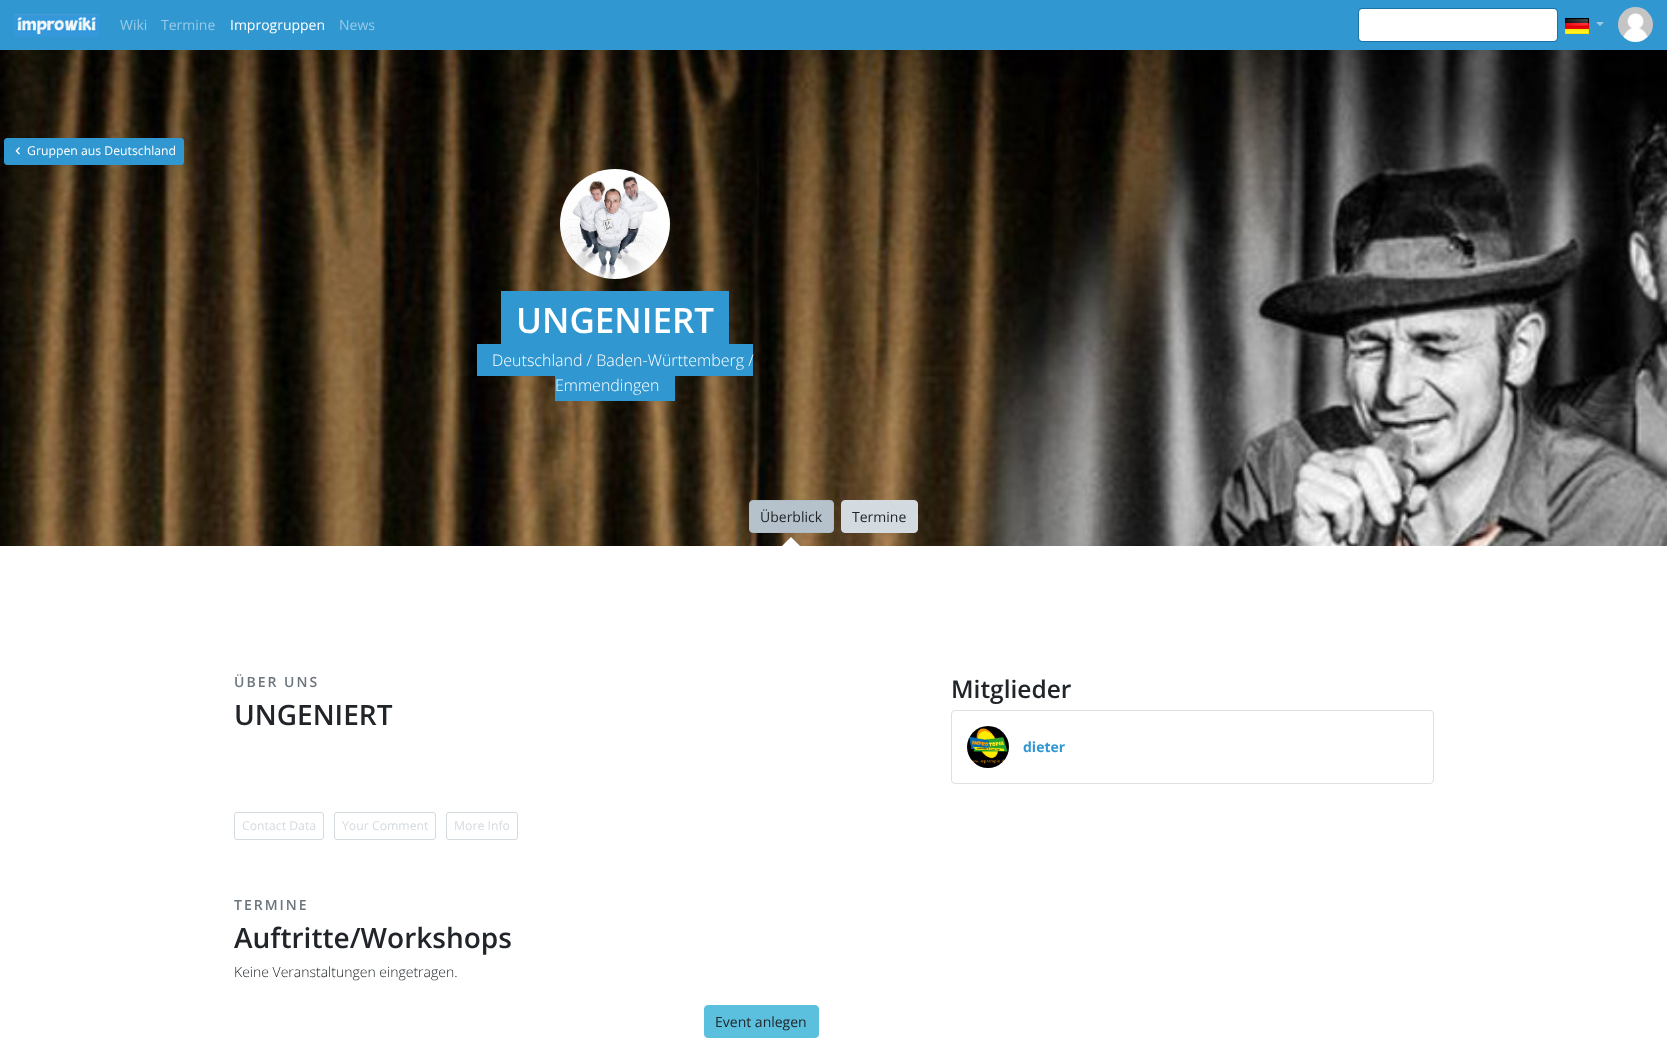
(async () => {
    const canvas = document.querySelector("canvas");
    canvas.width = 1667;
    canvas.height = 1040;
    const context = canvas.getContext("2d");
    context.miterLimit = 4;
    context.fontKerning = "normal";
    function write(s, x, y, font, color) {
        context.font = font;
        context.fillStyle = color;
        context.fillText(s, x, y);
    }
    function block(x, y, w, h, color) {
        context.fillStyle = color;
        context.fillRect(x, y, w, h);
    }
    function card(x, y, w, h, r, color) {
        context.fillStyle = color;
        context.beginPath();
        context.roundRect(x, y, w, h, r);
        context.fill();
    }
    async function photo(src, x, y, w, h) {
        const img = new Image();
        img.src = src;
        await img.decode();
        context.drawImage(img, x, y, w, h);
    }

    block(0, 0, 1667, 1040, "rgb(255, 255, 255)");
    block(0, 0, 1667, 50, "rgb(48, 151, 209)");
    await photo("media/1.png", 14, 14, 85, 23);
    write("Wiki", 120, 30, "14px Open Sans", "rgb(152, 203, 232)");
    write("Termine", 161, 30, "14px Open Sans", "rgb(152, 203, 232)");
    write("Improgruppen", 230, 30, "14px Open Sans", "rgb(255, 255, 255)");
    write("News", 339, 30, "14px Open Sans", "rgb(152, 203, 232)");
    card(1359, 9, 198, 32, 2.5, "rgb(255, 255, 255)");
    context.beginPath();
    context.roundRect(1358.5, 8.5, 199, 33, 3.5);
    context.strokeStyle = "rgb(28, 115, 165)";
    context.stroke();
    await photo("media/2.png", 1565, 18, 24, 16);
    context.fillStyle = "rgb(152, 203, 232)";
    context.beginPath();
    context.moveTo(1596, 22);
    context.lineTo(1604, 22);
    context.lineTo(1600, 26);
    context.closePath();
    context.fill();
    await photo("media/3.png", 1618, 7, 35, 35);
    await photo("media/4.png", 0, 50, 1667, 496);
    context.fillStyle = "rgb(48, 151, 209)";
    context.beginPath();
    context.roundRect(4.5, 138.5, 179, 26, 2.5);
    context.fill();
    context.strokeStyle = "rgb(48, 151, 209)";
    context.stroke();
    await photo("media/5.png", 15, 147, 5, 8);
    write("Gruppen aus Deutschland", 27, 155, "12.25px Open Sans", "rgb(255, 255, 255)");
    await photo("media/6.png", 560, 169, 110, 110);
    block(501, 291, 228, 53, "rgb(48, 151, 209)");
    write("UNGENIERT", 516, 333, "600 35px Open Sans", "rgb(255, 255, 255)");
    block(477, 344, 276, 32, "rgb(48, 151, 209)");
    write("Deutschland / Baden-Württemberg /", 492, 366, "300 16px Open Sans", "rgb(255, 255, 255)");
    block(555, 376, 120, 25, "rgb(48, 151, 209)");
    write("Emmendingen", 555, 391, "300 16px Open Sans", "rgb(255, 255, 255)");
    context.fillStyle = "rgb(182, 194, 203)";
    context.beginPath();
    context.roundRect(749.5, 500.5, 84, 32, 3.5);
    context.fill();
    context.strokeStyle = "rgb(175, 188, 197)";
    context.stroke();
    write("Überblick", 760, 522, "14px Open Sans", "rgb(33, 37, 41)");
    context.fillStyle = "rgb(255, 255, 255)";
    context.beginPath();
    context.moveTo(801, 547);
    context.lineTo(781, 547);
    context.lineTo(791, 537);
    context.closePath();
    context.fill();
    context.fillStyle = "rgb(212, 219, 224)";
    context.beginPath();
    context.roundRect(841.5, 500.5, 76, 32, 3.5);
    context.fill();
    context.strokeStyle = "rgb(212, 219, 224)";
    context.stroke();
    write("Termine", 852, 522, "14px Open Sans", "rgb(33, 37, 41)");
    context.letterSpacing = "2px";
    write("ÜBER UNS", 234, 687, "600 14px Open Sans", "rgb(108, 117, 125)");
    context.letterSpacing = "0px";
    write("UNGENIERT", 234, 725, "600 28px Open Sans", "rgb(33, 37, 41)");
    write("Mitglieder", 951, 698, "600 24.5px Open Sans", "rgb(33, 37, 41)");
    context.beginPath();
    context.roundRect(951.5, 710.5, 482, 73, 3.5);
    context.strokeStyle = "rgb(223, 223, 223)";
    context.stroke();
    await photo("media/7.png", 967, 726, 42, 42);
    write("dieter", 1023, 752, "bold 14px Open Sans", "rgb(48, 151, 209)");
    context.beginPath();
    context.roundRect(234.5, 812.5, 89, 27, 2.5);
    context.strokeStyle = "rgb(212, 219, 224)";
    context.stroke();
    write("Contact Data", 242, 830, "12.25px Open Sans", "rgb(212, 219, 224)");
    context.beginPath();
    context.roundRect(334.5, 812.5, 101, 27, 2.5);
    context.stroke();
    write("Your Comment", 342, 830, "12.25px Open Sans", "rgb(212, 219, 224)");
    context.beginPath();
    context.roundRect(446.5, 812.5, 71, 27, 2.5);
    context.stroke();
    write("More Info", 454, 830, "12.25px Open Sans", "rgb(212, 219, 224)");
    context.letterSpacing = "2px";
    write("TERMINE", 234, 910, "600 14px Open Sans", "rgb(108, 117, 125)");
    context.letterSpacing = "0px";
    write("Auftritte/Workshops", 234, 948, "600 28px Open Sans", "rgb(33, 37, 41)");
    write("Keine Veranstaltungen eingetragen.", 234, 977, "300 14px Open Sans", "rgb(33, 37, 41)");
    context.fillStyle = "rgb(91, 192, 222)";
    context.beginPath();
    context.roundRect(704.5, 1005.5, 114, 32, 3.5);
    context.fill();
    context.strokeStyle = "rgb(91, 192, 222)";
    context.stroke();
    write("Event anlegen", 715, 1027, "14px Open Sans", "rgb(33, 37, 41)");
})();
